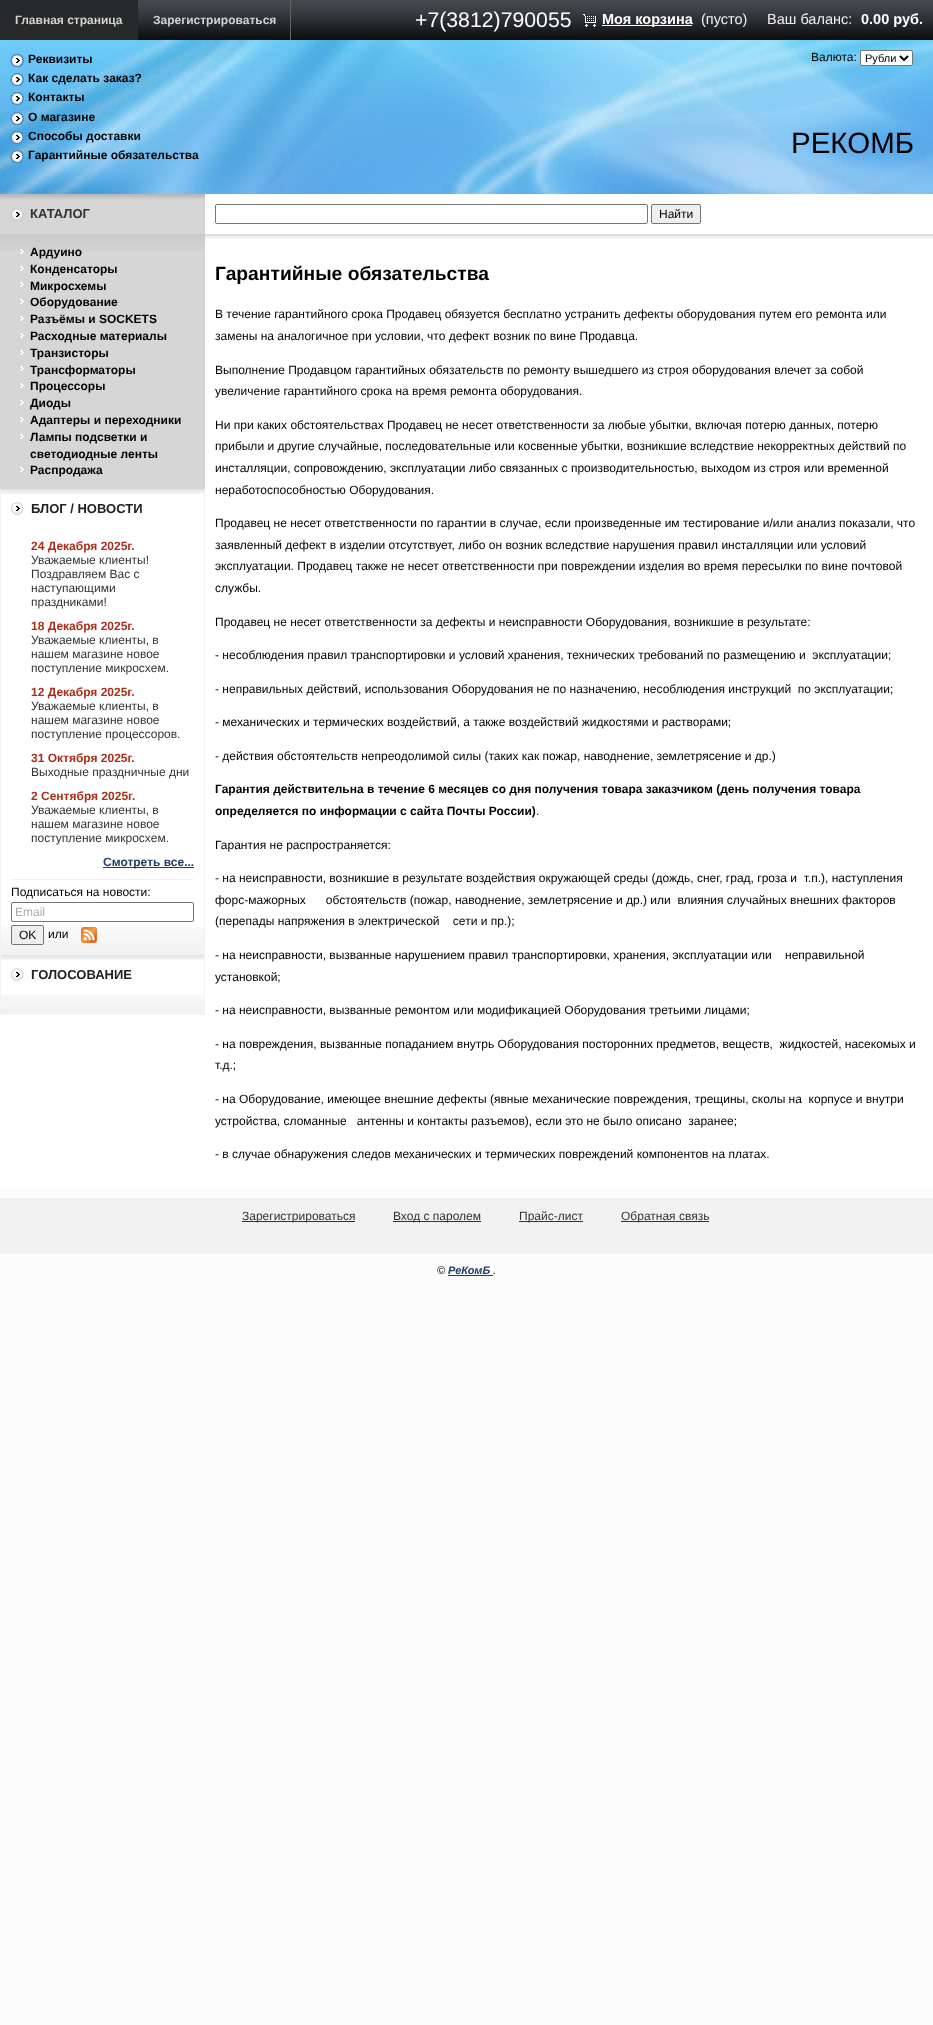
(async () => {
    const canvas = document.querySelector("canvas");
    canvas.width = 933;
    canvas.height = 2025;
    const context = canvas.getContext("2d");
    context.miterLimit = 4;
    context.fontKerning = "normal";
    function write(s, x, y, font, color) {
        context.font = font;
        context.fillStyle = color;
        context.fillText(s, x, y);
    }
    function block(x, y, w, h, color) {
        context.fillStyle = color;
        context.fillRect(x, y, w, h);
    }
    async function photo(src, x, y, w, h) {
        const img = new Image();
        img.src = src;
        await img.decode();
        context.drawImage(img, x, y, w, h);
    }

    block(0, 0, 933, 2025, "rgb(252, 252, 252)");
    await photo("media/1.png", 138, 0, 795, 40);
    block(0, 0, 138, 40, "rgb(38, 40, 42)");
    write("Главная страница", 15, 24, "bold 12px Liberation Sans", "rgb(211, 211, 211)");
    block(290, 0, 1, 40, "rgb(99, 99, 99)");
    write("Зарегистрироваться", 153, 24, "bold 12px Liberation Sans", "rgb(211, 211, 211)");
    write("+7(3812)790055", 415, 27, "21.25px Liberation Sans", "rgb(255, 255, 255)");
    await photo("media/2.png", 583, 14, 13, 13);
    block(602, 25, 90, 1, "rgb(255, 255, 255)");
    write("Моя корзина", 602, 24, "bold 14.5px Liberation Sans", "rgb(255, 255, 255)");
    write("(пусто)", 701, 24, "14.5px Liberation Sans", "rgb(240, 240, 240)");
    write("Ваш баланс:", 767, 24, "14.5px Liberation Sans", "rgb(240, 240, 240)");
    write("0.00 руб.", 861, 24, "bold 14.5px Liberation Sans", "rgb(255, 255, 255)");
    await photo("media/3.png", 0, 40, 933, 154);
    await photo("media/4.png", 10, 54, 14, 13);
    write("Реквизиты", 28, 63, "bold 12px Liberation Sans", "rgb(0, 0, 0)");
    await photo("media/5.png", 10, 73, 14, 13);
    write("Как сделать заказ?", 28, 82, "bold 12px Liberation Sans", "rgb(0, 0, 0)");
    await photo("media/6.png", 10, 92, 14, 13);
    write("Контакты", 28, 101, "bold 12px Liberation Sans", "rgb(0, 0, 0)");
    await photo("media/7.png", 10, 112, 14, 13);
    write("О магазине", 28, 121, "bold 12px Liberation Sans", "rgb(0, 0, 0)");
    await photo("media/8.png", 10, 131, 14, 13);
    write("Способы доставки", 28, 140, "bold 12px Liberation Sans", "rgb(0, 0, 0)");
    await photo("media/9.png", 10, 150, 14, 13);
    write("Гарантийные обязательства", 28, 159, "bold 12px Liberation Sans", "rgb(0, 0, 0)");
    write("Валюта:", 811, 61, "12px Liberation Sans", "rgb(0, 0, 0)");
    context.fillStyle = "rgb(255, 255, 255)";
    context.beginPath();
    context.roundRect(860.5, 50.5, 52, 15, 1.5);
    context.fill();
    context.strokeStyle = "rgb(118, 118, 118)";
    context.stroke();
    context.beginPath();
    context.moveTo(900, 56);
    context.lineTo(904, 60);
    context.lineTo(908, 56);
    context.strokeStyle = "rgb(0, 0, 0)";
    context.lineWidth = 2;
    context.stroke();
    write("Рубли", 865, 62, "11px Liberation Sans", "rgb(0, 0, 0)");
    write("РЕКОМБ", 791, 153, "29.5px Liberation Sans", "rgb(0, 0, 0)");
    block(0, 494, 205, 694, "rgb(255, 255, 255)");
    await photo("media/10.png", 0, 194, 205, 40);
    await photo("media/11.png", 10, 208, 14, 13);
    write("КАТАЛОГ", 30, 218, "bold 13px Liberation Sans", "rgb(51, 51, 51)");
    block(0, 251, 205, 238, "rgb(214, 214, 214)");
    await photo("media/12.png", 0, 234, 205, 17);
    await photo("media/13.png", 20, 249, 4, 5);
    write("Ардуино", 30, 256, "bold 12px Liberation Sans", "rgb(0, 0, 0)");
    await photo("media/14.png", 20, 266, 4, 5);
    write("Конденсаторы", 30, 273, "bold 12px Liberation Sans", "rgb(0, 0, 0)");
    await photo("media/14.png", 20, 282, 4, 5);
    write("Микросхемы", 30, 290, "bold 12px Liberation Sans", "rgb(0, 0, 0)");
    await photo("media/14.png", 20, 299, 4, 5);
    write("Оборудование", 30, 306, "bold 12px Liberation Sans", "rgb(0, 0, 0)");
    await photo("media/14.png", 20, 316, 4, 5);
    write("Разъёмы и SOCKETS", 30, 323, "bold 12px Liberation Sans", "rgb(0, 0, 0)");
    await photo("media/14.png", 20, 333, 4, 5);
    write("Расходные материалы", 30, 340, "bold 12px Liberation Sans", "rgb(0, 0, 0)");
    await photo("media/14.png", 20, 350, 4, 5);
    write("Транзисторы", 30, 357, "bold 12px Liberation Sans", "rgb(0, 0, 0)");
    await photo("media/14.png", 20, 366, 4, 5);
    write("Трансформаторы", 30, 374, "bold 12px Liberation Sans", "rgb(0, 0, 0)");
    await photo("media/14.png", 20, 383, 4, 5);
    write("Процессоры", 30, 390, "bold 12px Liberation Sans", "rgb(0, 0, 0)");
    await photo("media/14.png", 20, 400, 4, 5);
    write("Диоды", 30, 407, "bold 12px Liberation Sans", "rgb(0, 0, 0)");
    await photo("media/14.png", 20, 417, 4, 5);
    write("Адаптеры и переходники", 30, 424, "bold 12px Liberation Sans", "rgb(0, 0, 0)");
    await photo("media/14.png", 20, 434, 4, 5);
    write("Лампы подсветки и", 30, 441, "bold 12px Liberation Sans", "rgb(0, 0, 0)");
    write("светодиодные ленты", 30, 458, "bold 12px Liberation Sans", "rgb(0, 0, 0)");
    await photo("media/14.png", 20, 467, 4, 5);
    write("Распродажа", 30, 474, "bold 12px Liberation Sans", "rgb(0, 0, 0)");
    await photo("media/15.png", 1, 489, 203, 5);
    block(204, 489, 1, 526, "rgb(242, 242, 242)");
    block(0, 489, 1, 526, "rgb(242, 242, 242)");
    await photo("media/16.png", 11, 502, 13, 13);
    write("БЛОГ / НОВОСТИ", 31, 513, "bold 13px Liberation Sans", "rgb(34, 34, 34)");
    await photo("media/17.png", 1, 927, 203, 28);
    write("24 Декабря 2025г.", 31, 550, "bold 12px Liberation Sans", "rgb(171, 46, 25)");
    write("Уважаемые клиенты!", 31, 564, "12px Liberation Sans", "rgb(51, 51, 51)");
    write("Поздравляем Вас с", 31, 578, "12px Liberation Sans", "rgb(51, 51, 51)");
    write("наступающими", 31, 592, "12px Liberation Sans", "rgb(51, 51, 51)");
    write("праздниками!", 31, 606, "12px Liberation Sans", "rgb(51, 51, 51)");
    write("18 Декабря 2025г.", 31, 630, "bold 12px Liberation Sans", "rgb(171, 46, 25)");
    write("Уважаемые клиенты, в", 31, 644, "12px Liberation Sans", "rgb(51, 51, 51)");
    write("нашем магазине новое", 31, 658, "12px Liberation Sans", "rgb(51, 51, 51)");
    write("поступление микросхем.", 31, 672, "12px Liberation Sans", "rgb(51, 51, 51)");
    write("12 Декабря 2025г.", 31, 696, "bold 12px Liberation Sans", "rgb(171, 46, 25)");
    write("Уважаемые клиенты, в", 31, 710, "12px Liberation Sans", "rgb(51, 51, 51)");
    write("нашем магазине новое", 31, 724, "12px Liberation Sans", "rgb(51, 51, 51)");
    write("поступление процессоров.", 31, 738, "12px Liberation Sans", "rgb(51, 51, 51)");
    write("31 Октября 2025г.", 31, 762, "bold 12px Liberation Sans", "rgb(171, 46, 25)");
    write("Выходные праздничные дни", 31, 776, "12px Liberation Sans", "rgb(51, 51, 51)");
    write("2 Сентября 2025г.", 31, 800, "bold 12px Liberation Sans", "rgb(171, 46, 25)");
    write("Уважаемые клиенты, в", 31, 814, "12px Liberation Sans", "rgb(51, 51, 51)");
    write("нашем магазине новое", 31, 828, "12px Liberation Sans", "rgb(51, 51, 51)");
    write("поступление микросхем.", 31, 842, "12px Liberation Sans", "rgb(51, 51, 51)");
    block(103, 867, 91, 1, "rgb(31, 61, 106)");
    write("Смотреть все...", 103, 866, "bold 12px Liberation Sans", "rgb(31, 61, 106)");
    block(11, 879, 183, 1, "rgb(242, 242, 242)");
    write("Подписаться на новости:", 11, 896, "12px Liberation Sans", "rgb(0, 0, 0)");
    context.beginPath();
    context.roundRect(11.5, 902.5, 182, 19, 1.5);
    context.strokeStyle = "rgb(118, 118, 118)";
    context.lineWidth = 1;
    context.stroke();
    write("Email", 15, 916, "12px Liberation Sans", "rgb(170, 170, 170)");
    context.fillStyle = "rgb(239, 239, 239)";
    context.beginPath();
    context.roundRect(11.5, 925.5, 32, 19, 1.5);
    context.fill();
    context.stroke();
    write("OK", 19, 939, "12px Liberation Sans", "rgb(0, 0, 0)");
    write("или", 48, 938, "12px Liberation Sans", "rgb(0, 0, 0)");
    await photo("media/18.png", 81, 927, 16, 16);
    await photo("media/15.png", 1, 955, 203, 5);
    await photo("media/16.png", 11, 968, 13, 13);
    write("ГОЛОСОВАНИЕ", 31, 979, "bold 13px Liberation Sans", "rgb(34, 34, 34)");
    await photo("media/19.png", 1, 995, 203, 20);
    block(205, 194, 728, 994, "rgb(255, 255, 255)");
    context.beginPath();
    context.roundRect(215.5, 204.5, 432, 19, 1.5);
    context.stroke();
    context.fillStyle = "rgb(239, 239, 239)";
    context.beginPath();
    context.roundRect(651.5, 204.5, 49, 19, 1.5);
    context.fill();
    context.stroke();
    write("Найти", 659, 218, "12px Liberation Sans", "rgb(0, 0, 0)");
    await photo("media/20.png", 205, 234, 728, 5);
    write("Гарантийные обязательства", 215, 280, "bold 19.25px Liberation Sans", "rgb(0, 0, 0)");
    write("В течение гарантийного срока Продавец обязуется бесплатно устранить дефекты оборудования путем его ремонта или", 215, 318, "12px Liberation Sans", "rgb(0, 0, 0)");
    write("замены на аналогичное при условии, что дефект возник по вине Продавца.", 215, 340, "12px Liberation Sans", "rgb(0, 0, 0)");
    write("Выполнение Продавцом гарантийных обязательств по ремонту вышедшего из строя оборудования влечет за собой", 215, 374, "12px Liberation Sans", "rgb(0, 0, 0)");
    write("увеличение гарантийного срока на время ремонта оборудования.", 215, 395, "12px Liberation Sans", "rgb(0, 0, 0)");
    write("Ни при каких обстоятельствах Продавец не несет ответственности за любые убытки, включая потерю данных, потерю", 215, 429, "12px Liberation Sans", "rgb(0, 0, 0)");
    write("прибыли и другие случайные, последовательные или косвенные убытки, возникшие вследствие некорректных действий по", 215, 450, "12px Liberation Sans", "rgb(0, 0, 0)");
    write("инсталляции, сопровождению, эксплуатации либо связанных с производительностью, выходом из строя или временной", 215, 472, "12px Liberation Sans", "rgb(0, 0, 0)");
    write("неработоспособностью Оборудования.", 215, 494, "12px Liberation Sans", "rgb(0, 0, 0)");
    write("Продавец не несет ответственности по гарантии в случае, если произведенные им тестирование и/или анализ показали, что", 215, 527, "12px Liberation Sans", "rgb(0, 0, 0)");
    write("заявленный дефект в изделии отсутствует, либо он возник вследствие нарушения правил инсталляции или условий", 215, 549, "12px Liberation Sans", "rgb(0, 0, 0)");
    write("эксплуатации. Продавец также не несет ответственности при повреждении изделия во время пересылки по вине почтовой", 215, 570, "12px Liberation Sans", "rgb(0, 0, 0)");
    write("службы.", 215, 592, "12px Liberation Sans", "rgb(0, 0, 0)");
    write("Продавец не несет ответственности за дефекты и неисправности Оборудования, возникшие в результате:", 215, 626, "12px Liberation Sans", "rgb(0, 0, 0)");
    write("- несоблюдения правил транспортировки и условий хранения, технических требований по размещению и  эксплуатации;", 215, 659, "12px Liberation Sans", "rgb(0, 0, 0)");
    write("- неправильных действий, использования Оборудования не по назначению, несоблюдения инструкций  по эксплуатации;", 215, 693, "12px Liberation Sans", "rgb(0, 0, 0)");
    write("- механических и термических воздействий, а также воздействий жидкостями и растворами;", 215, 726, "12px Liberation Sans", "rgb(0, 0, 0)");
    write("- действия обстоятельств непреодолимой силы (таких как пожар, наводнение, землетрясение и др.)", 215, 760, "12px Liberation Sans", "rgb(0, 0, 0)");
    write("Гарантия действительна в течение 6 месяцев со дня получения товара заказчиком (день получения товара", 215, 793, "bold 12px Liberation Sans", "rgb(0, 0, 0)");
    write("определяется по информации с сайта Почты России)", 215, 815, "bold 12px Liberation Sans", "rgb(0, 0, 0)");
    write(".", 536, 815, "12px Liberation Sans", "rgb(0, 0, 0)");
    write("Гарантия не распространяется:", 215, 849, "12px Liberation Sans", "rgb(0, 0, 0)");
    write("- на неисправности, возникшие в результате воздействия окружающей среды (дождь, снег, град, гроза и  т.п.), наступления", 215, 882, "12px Liberation Sans", "rgb(0, 0, 0)");
    write("форс-мажорных      обстоятельств (пожар, наводнение, землетрясение и др.) или  влияния случайных внешних факторов", 215, 904, "12px Liberation Sans", "rgb(0, 0, 0)");
    write("(перепады напряжения в электрической    сети и пр.);", 215, 925, "12px Liberation Sans", "rgb(0, 0, 0)");
    write("- на неисправности, вызванные нарушением правил транспортировки, хранения, эксплуатации или    неправильной", 215, 959, "12px Liberation Sans", "rgb(0, 0, 0)");
    write("установкой;", 215, 981, "12px Liberation Sans", "rgb(0, 0, 0)");
    write("- на неисправности, вызванные ремонтом или модификацией Оборудования третьими лицами;", 215, 1014, "12px Liberation Sans", "rgb(0, 0, 0)");
    write("- на повреждения, вызванные попаданием внутрь Оборудования посторонних предметов, веществ,  жидкостей, насекомых и", 215, 1048, "12px Liberation Sans", "rgb(0, 0, 0)");
    write("т.д.;", 215, 1069, "12px Liberation Sans", "rgb(0, 0, 0)");
    write("- на Оборудование, имеющее внешние дефекты (явные механические повреждения, трещины, сколы на  корпусе и внутри", 215, 1103, "12px Liberation Sans", "rgb(0, 0, 0)");
    write("устройства, сломанные   антенны и контакты разъемов), если это не было описано  заранее;", 215, 1125, "12px Liberation Sans", "rgb(0, 0, 0)");
    write("- в случае обнаружения следов механических и термических повреждений компонентов на платах.", 215, 1158, "12px Liberation Sans", "rgb(0, 0, 0)");
    block(0, 1198, 933, 56, "rgb(242, 242, 242)");
    block(242, 1221, 113, 1, "rgb(51, 51, 51)");
    write("Зарегистрироваться", 242, 1220, "12px Liberation Sans", "rgb(51, 51, 51)");
    block(393, 1221, 88, 1, "rgb(51, 51, 51)");
    write("Вход с паролем", 393, 1220, "12px Liberation Sans", "rgb(51, 51, 51)");
    block(519, 1221, 64, 1, "rgb(51, 51, 51)");
    write("Прайс-лист", 519, 1220, "12px Liberation Sans", "rgb(51, 51, 51)");
    block(621, 1221, 88, 1, "rgb(51, 51, 51)");
    write("Обратная связь", 621, 1220, "12px Liberation Sans", "rgb(51, 51, 51)");
    write("©", 437, 1274, "italic 11px Liberation Sans", "rgb(0, 0, 0)");
    write("РеКомБ", 448, 1274, "italic bold 11px Liberation Sans", "rgb(31, 61, 106)");
    write(".", 493, 1274, "italic 11px Liberation Sans", "rgb(0, 0, 0)");
    block(448, 1275, 45, 1, "rgb(31, 61, 106)");
})();
